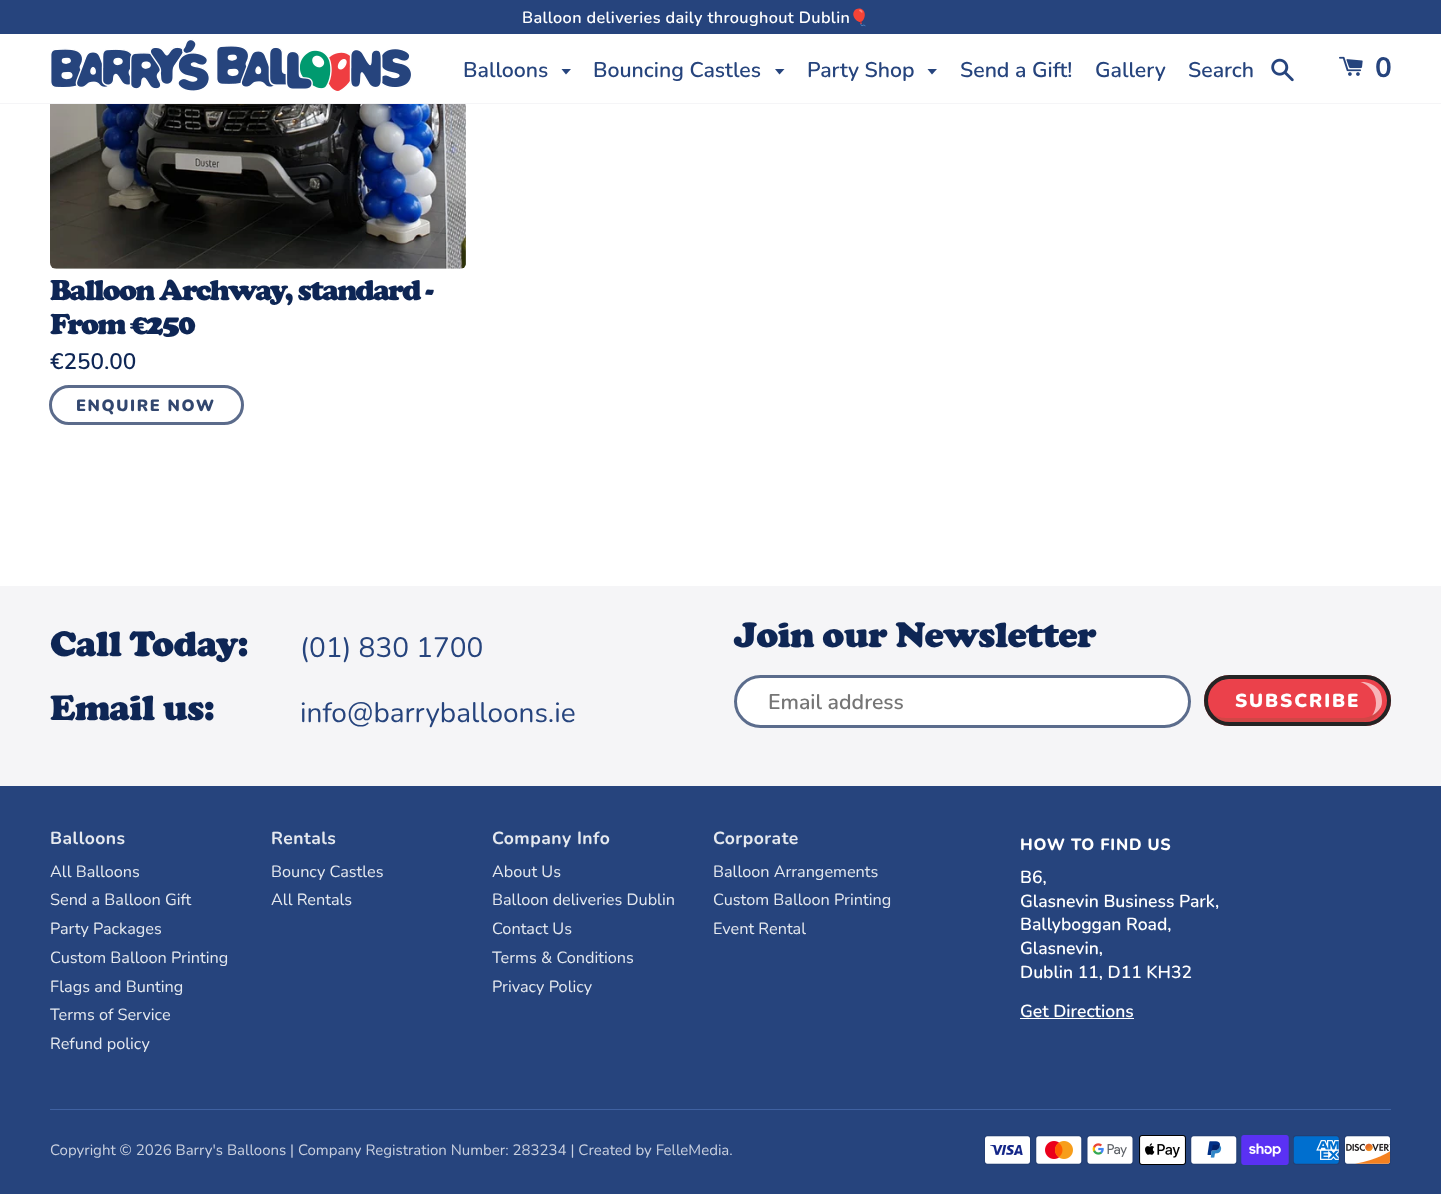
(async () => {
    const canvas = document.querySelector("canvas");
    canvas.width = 1441;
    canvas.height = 1194;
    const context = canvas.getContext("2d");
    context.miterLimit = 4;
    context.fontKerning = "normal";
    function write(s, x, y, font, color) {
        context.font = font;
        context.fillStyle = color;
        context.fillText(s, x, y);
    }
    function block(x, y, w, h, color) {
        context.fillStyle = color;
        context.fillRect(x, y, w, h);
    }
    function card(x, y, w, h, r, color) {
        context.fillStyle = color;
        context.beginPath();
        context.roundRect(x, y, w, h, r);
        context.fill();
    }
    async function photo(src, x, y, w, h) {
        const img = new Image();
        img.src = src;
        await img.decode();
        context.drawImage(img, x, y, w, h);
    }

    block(0, 0, 1441, 1194, "rgb(255, 255, 255)");
    block(0, 103, 1441, 1, "rgb(245, 245, 247)");
    block(0, 0, 1441, 34, "rgb(38, 68, 125)");
    context.letterSpacing = "0.35px";
    write("Balloon deliveries daily throughout Dublin", 522, 23, "600 16.25px Nunito", "rgb(255, 255, 255)");
    write("🎈", 849, 23, "bold 16.25px Noto Color Emoji", "rgb(255, 255, 255)");
    await photo("media/1.png", 50, 39, 362, 52);
    context.letterSpacing = "0px";
    write("Balloons", 463, 77, "600 21.25px Nunito", "rgb(38, 68, 125)");
    context.beginPath();
    context.moveTo(566, 74.5);
    context.lineTo(571, 69);
    context.lineTo(561.5, 69);
    context.closePath();
    context.fill("evenodd");
    write("Bouncing Castles", 593, 77, "600 21.25px Nunito", "rgb(38, 68, 125)");
    context.beginPath();
    context.moveTo(779.5, 74.5);
    context.lineTo(784.5, 69);
    context.lineTo(775, 69);
    context.closePath();
    context.fill("evenodd");
    write("Party Shop", 807, 77, "600 21.25px Nunito", "rgb(38, 68, 125)");
    context.beginPath();
    context.moveTo(932, 74.5);
    context.lineTo(937, 69);
    context.lineTo(927.5, 69);
    context.closePath();
    context.fill("evenodd");
    write("Send a Gift!", 960, 77, "600 21.25px Nunito", "rgb(38, 68, 125)");
    write("Gallery", 1095, 77, "600 21.25px Nunito", "rgb(38, 68, 125)");
    write("Search", 1188, 77, "600 21.25px Nunito", "rgb(38, 68, 125)");
    await photo("media/2.png", 1271, 58, 23, 24);
    await photo("media/3.png", 1339, 56, 24, 20);
    write("0", 1375, 77, "bold 28px Nunito", "rgb(38, 68, 125)");
    await photo("media/4.png", 50, 104, 416, 165);
    context.letterSpacing = "-1.9px";
    write("Balloon Archway, standard -", 50, 300, "900 30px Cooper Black", "rgb(14, 38, 85)");
    write("From €250", 50, 334, "900 30px Cooper Black", "rgb(14, 38, 85)");
    context.letterSpacing = "0px";
    write("€250.00", 50, 369, "600 22.5px Nunito", "rgb(14, 38, 85)");
    context.beginPath();
    context.roundRect(50.5, 386.5, 192, 37, 18.5);
    context.strokeStyle = "rgb(91, 107, 139)";
    context.lineWidth = 3;
    context.stroke();
    context.letterSpacing = "1.6px";
    write("ENQUIRE NOW", 76, 411, "900 16.25px Nunito", "rgb(50, 71, 111)");
    block(0, 586, 1441, 200, "rgb(245, 245, 247)");
    context.letterSpacing = "-0.75px";
    write("Call Today:", 50, 656, "900 36.75px Cooper Black", "rgb(14, 38, 85)");
    context.letterSpacing = "0px";
    write("(01) 830 1700", 300, 657, "28px Nunito", "rgb(38, 68, 125)");
    context.letterSpacing = "-0.75px";
    write("Email us:", 50, 720, "900 36.75px Cooper Black", "rgb(14, 38, 85)");
    context.letterSpacing = "0px";
    write("info@barryballoons.ie", 300, 722, "28px Nunito", "rgb(38, 68, 125)");
    context.letterSpacing = "-0.75px";
    write("Join our Newsletter", 734, 647, "900 36.75px Cooper Black", "rgb(14, 38, 85)");
    card(734, 675, 457, 53, 26.5, "rgb(255, 255, 255)");
    context.beginPath();
    context.roundRect(735.5, 676.5, 454, 50, 25);
    context.strokeStyle = "rgba(14, 38, 85, 0.68)";
    context.stroke();
    context.letterSpacing = "0px";
    write("Email address", 768, 709, "600 21.25px Nunito", "rgb(117, 117, 117)");
    card(1204, 675, 187, 51, 25.5, "rgb(235, 65, 75)");
    context.fillStyle = "rgb(247, 181, 185)";
    context.beginPath();
    context.moveTo(1230, 679);
    context.bezierCurveTo(1227, 679, 1224, 680, 1221, 681);
    context.lineTo(1354, 681);
    context.bezierCurveTo(1366, 681, 1376, 691, 1376, 703);
    context.bezierCurveTo(1376, 712, 1371, 719, 1363, 723);
    context.bezierCurveTo(1397, 723, 1394, 679, 1366, 679);
    context.closePath();
    context.fill();
    context.fillStyle = "rgb(208, 70, 70)";
    context.beginPath();
    context.moveTo(1211, 712);
    context.bezierCurveTo(1215, 719, 1222, 723, 1230, 723);
    context.lineTo(1366, 723);
    context.bezierCurveTo(1378, 723, 1388, 713, 1388, 701);
    context.bezierCurveTo(1388, 695, 1385, 689, 1381, 685);
    context.bezierCurveTo(1383, 688, 1384, 692, 1384, 696);
    context.bezierCurveTo(1384, 708, 1374, 718, 1362, 718);
    context.lineTo(1226, 718);
    context.bezierCurveTo(1220, 718, 1215, 716, 1211, 712);
    context.closePath();
    context.fill();
    context.fillStyle = "rgb(235, 65, 75)";
    context.beginPath();
    context.moveTo(1223, 722);
    context.lineTo(1230, 723);
    context.lineTo(1366, 723);
    context.bezierCurveTo(1378, 723, 1388, 713, 1388, 701);
    context.bezierCurveTo(1388, 689, 1378, 679, 1366, 679);
    context.lineTo(1361, 679);
    context.bezierCurveTo(1373, 679, 1382, 689, 1382, 701);
    context.bezierCurveTo(1382, 713, 1373, 722, 1361, 722);
    context.closePath();
    context.fill();
    context.beginPath();
    context.moveTo(1226, 682);
    context.lineTo(1362, 682);
    context.bezierCurveTo(1374, 682, 1384, 692, 1384, 704);
    context.bezierCurveTo(1384, 710, 1381, 716, 1377, 720);
    context.bezierCurveTo(1383, 716, 1388, 709, 1388, 701);
    context.bezierCurveTo(1388, 689, 1378, 679, 1366, 679);
    context.lineTo(1230, 679);
    context.bezierCurveTo(1224, 679, 1219, 681, 1215, 685);
    context.bezierCurveTo(1218, 683, 1222, 682, 1226, 682);
    context.closePath();
    context.fill();
    context.beginPath();
    context.roundRect(1206, 677, 183, 47, 23.5);
    context.strokeStyle = "rgb(36, 36, 36)";
    context.lineWidth = 4;
    context.stroke();
    context.letterSpacing = "1.9px";
    write("SUBSCRIBE", 1235, 707, "900 18.75px Nunito", "rgb(255, 255, 255)");
    block(0, 786, 1441, 408, "rgb(38, 68, 125)");
    context.letterSpacing = "0.5px";
    write("Balloons", 50, 844, "bold 17.5px Nunito", "rgb(229, 233, 239)");
    context.letterSpacing = "0px";
    write("All Balloons", 50, 877, "16.25px Nunito", "rgb(229, 233, 239)");
    write("Send a Balloon Gift", 50, 905, "16.25px Nunito", "rgb(229, 233, 239)");
    write("Party Packages", 50, 934, "16.25px Nunito", "rgb(229, 233, 239)");
    write("Custom Balloon Printing", 50, 963, "16.25px Nunito", "rgb(229, 233, 239)");
    write("Flags and Bunting", 50, 992, "16.25px Nunito", "rgb(229, 233, 239)");
    write("Terms of Service", 50, 1020, "16.25px Nunito", "rgb(229, 233, 239)");
    write("Refund policy", 50, 1049, "16.25px Nunito", "rgb(229, 233, 239)");
    context.letterSpacing = "0.5px";
    write("Rentals", 271, 844, "bold 17.5px Nunito", "rgb(229, 233, 239)");
    context.letterSpacing = "0px";
    write("Bouncy Castles", 271, 877, "16.25px Nunito", "rgb(229, 233, 239)");
    write("All Rentals", 271, 905, "16.25px Nunito", "rgb(229, 233, 239)");
    context.letterSpacing = "0.5px";
    write("Company Info", 492, 844, "bold 17.5px Nunito", "rgb(229, 233, 239)");
    context.letterSpacing = "0px";
    write("About Us", 492, 877, "16.25px Nunito", "rgb(229, 233, 239)");
    write("Balloon deliveries Dublin", 492, 905, "16.25px Nunito", "rgb(229, 233, 239)");
    write("Contact Us", 492, 934, "16.25px Nunito", "rgb(229, 233, 239)");
    write("Terms & Conditions", 492, 963, "16.25px Nunito", "rgb(229, 233, 239)");
    write("Privacy Policy", 492, 992, "16.25px Nunito", "rgb(229, 233, 239)");
    context.letterSpacing = "0.5px";
    write("Corporate", 713, 844, "bold 17.5px Nunito", "rgb(229, 233, 239)");
    context.letterSpacing = "0px";
    write("Balloon Arrangements", 713, 877, "16.25px Nunito", "rgb(229, 233, 239)");
    write("Custom Balloon Printing", 713, 905, "16.25px Nunito", "rgb(229, 233, 239)");
    write("Event Rental", 713, 934, "16.25px Nunito", "rgb(229, 233, 239)");
    context.letterSpacing = "0.75px";
    write("HOW TO FIND US", 1020, 850, "800 16.25px Nunito", "rgb(255, 255, 255)");
    context.letterSpacing = "0px";
    write("B6,", 1020, 883, "600 17.5px Nunito", "rgb(255, 255, 255)");
    write("Glasnevin Business Park,", 1020, 907, "600 17.5px Nunito", "rgb(255, 255, 255)");
    write("Ballyboggan Road,", 1020, 930, "600 17.5px Nunito", "rgb(255, 255, 255)");
    write("Glasnevin,", 1020, 954, "600 17.5px Nunito", "rgb(255, 255, 255)");
    write("Dublin 11, D11 KH32", 1020, 978, "600 17.5px Nunito", "rgb(255, 255, 255)");
    write("Get Directions", 1020, 1017, "600 17.5px Nunito", "rgb(255, 255, 255)");
    block(1020, 1018, 114, 1, "rgb(255, 255, 255)");
    block(50, 1109, 1341, 1, "rgb(63, 97, 161)");
    write("Copyright © 2026 Barry's Balloons | Company Registration Number: 283234 | Created by FelleMedia.", 50, 1155, "15px Nunito", "rgb(201, 208, 223)");
    await photo("media/5.png", 984, 1135, 47, 30);
    await photo("media/6.png", 1035, 1135, 48, 30);
    await photo("media/7.png", 1086, 1135, 48, 30);
    await photo("media/8.png", 1139, 1135, 47, 30);
    await photo("media/9.png", 1190, 1135, 48, 30);
    await photo("media/10.png", 1241, 1135, 48, 30);
    await photo("media/11.png", 1293, 1135, 47, 30);
    await photo("media/12.png", 1344, 1135, 47, 30);
})();
